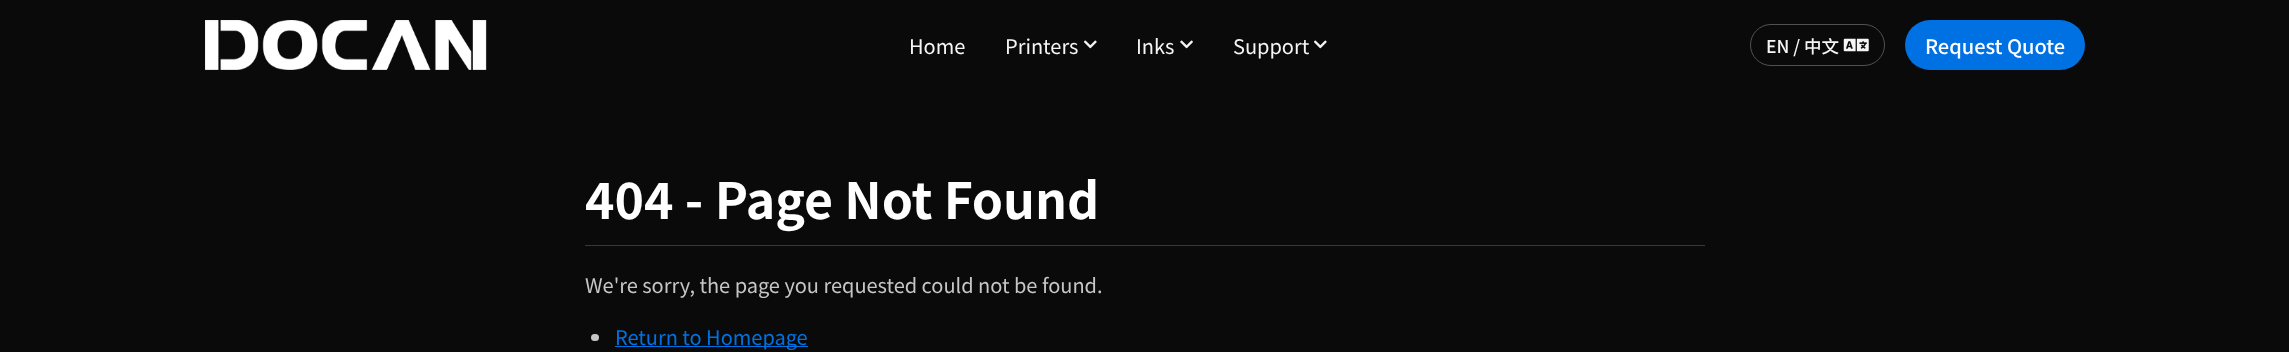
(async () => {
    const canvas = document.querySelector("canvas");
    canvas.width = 2289;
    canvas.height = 352;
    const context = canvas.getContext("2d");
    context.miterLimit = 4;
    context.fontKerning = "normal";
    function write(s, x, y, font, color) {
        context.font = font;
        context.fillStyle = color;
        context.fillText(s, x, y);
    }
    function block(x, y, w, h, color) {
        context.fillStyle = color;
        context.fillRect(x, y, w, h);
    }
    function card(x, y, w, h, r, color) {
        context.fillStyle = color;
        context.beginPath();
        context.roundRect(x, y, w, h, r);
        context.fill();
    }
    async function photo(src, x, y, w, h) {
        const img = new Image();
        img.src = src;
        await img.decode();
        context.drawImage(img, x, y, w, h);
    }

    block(0, 0, 2289, 352, "rgb(10, 10, 10)");
    await photo("media/1.png", 205, 20, 282, 50);
    write("Home", 909, 54, "20px Noto Sans SC", "rgb(245, 245, 247)");
    write("Printers", 1005, 54, "20px Noto Sans SC", "rgb(245, 245, 247)");
    await photo("media/2.png", 1084, 40, 13, 9);
    write("Inks", 1136, 54, "20px Noto Sans SC", "rgb(245, 245, 247)");
    await photo("media/3.png", 1180, 40, 13, 9);
    write("Support", 1233, 54, "20px Noto Sans SC", "rgb(245, 245, 247)");
    await photo("media/2.png", 1314, 40, 13, 9);
    context.beginPath();
    context.roundRect(1750.5, 24.5, 134, 41, 20.5);
    context.strokeStyle = "rgb(81, 81, 81)";
    context.stroke();
    write("EN / 中文", 1766, 53, "500 17.5px Noto Sans SC", "rgb(245, 245, 247)");
    await photo("media/4.png", 1843, 38, 26, 14);
    card(1905, 20, 180, 50, 25, "rgb(0, 113, 227)");
    write("Request Quote", 1925, 54, "500 20px Noto Sans SC", "rgb(255, 255, 255)");
    block(585, 245, 1120, 1, "rgb(57, 57, 57)");
    write("404 - Page Not Found", 585, 219, "bold 50px Noto Sans SC", "rgb(255, 255, 255)");
    write("We're sorry, the page you requested could not be found.", 585, 293, "20px Noto Sans SC", "rgb(198, 198, 200)");
    card(591, 334, 8, 7, 3.5, "rgb(198, 198, 200)");
    block(615, 346, 193, 1, "rgb(0, 113, 227)");
    write("Return to Homepage", 615, 345, "20px Noto Sans SC", "rgb(0, 113, 227)");
})();
